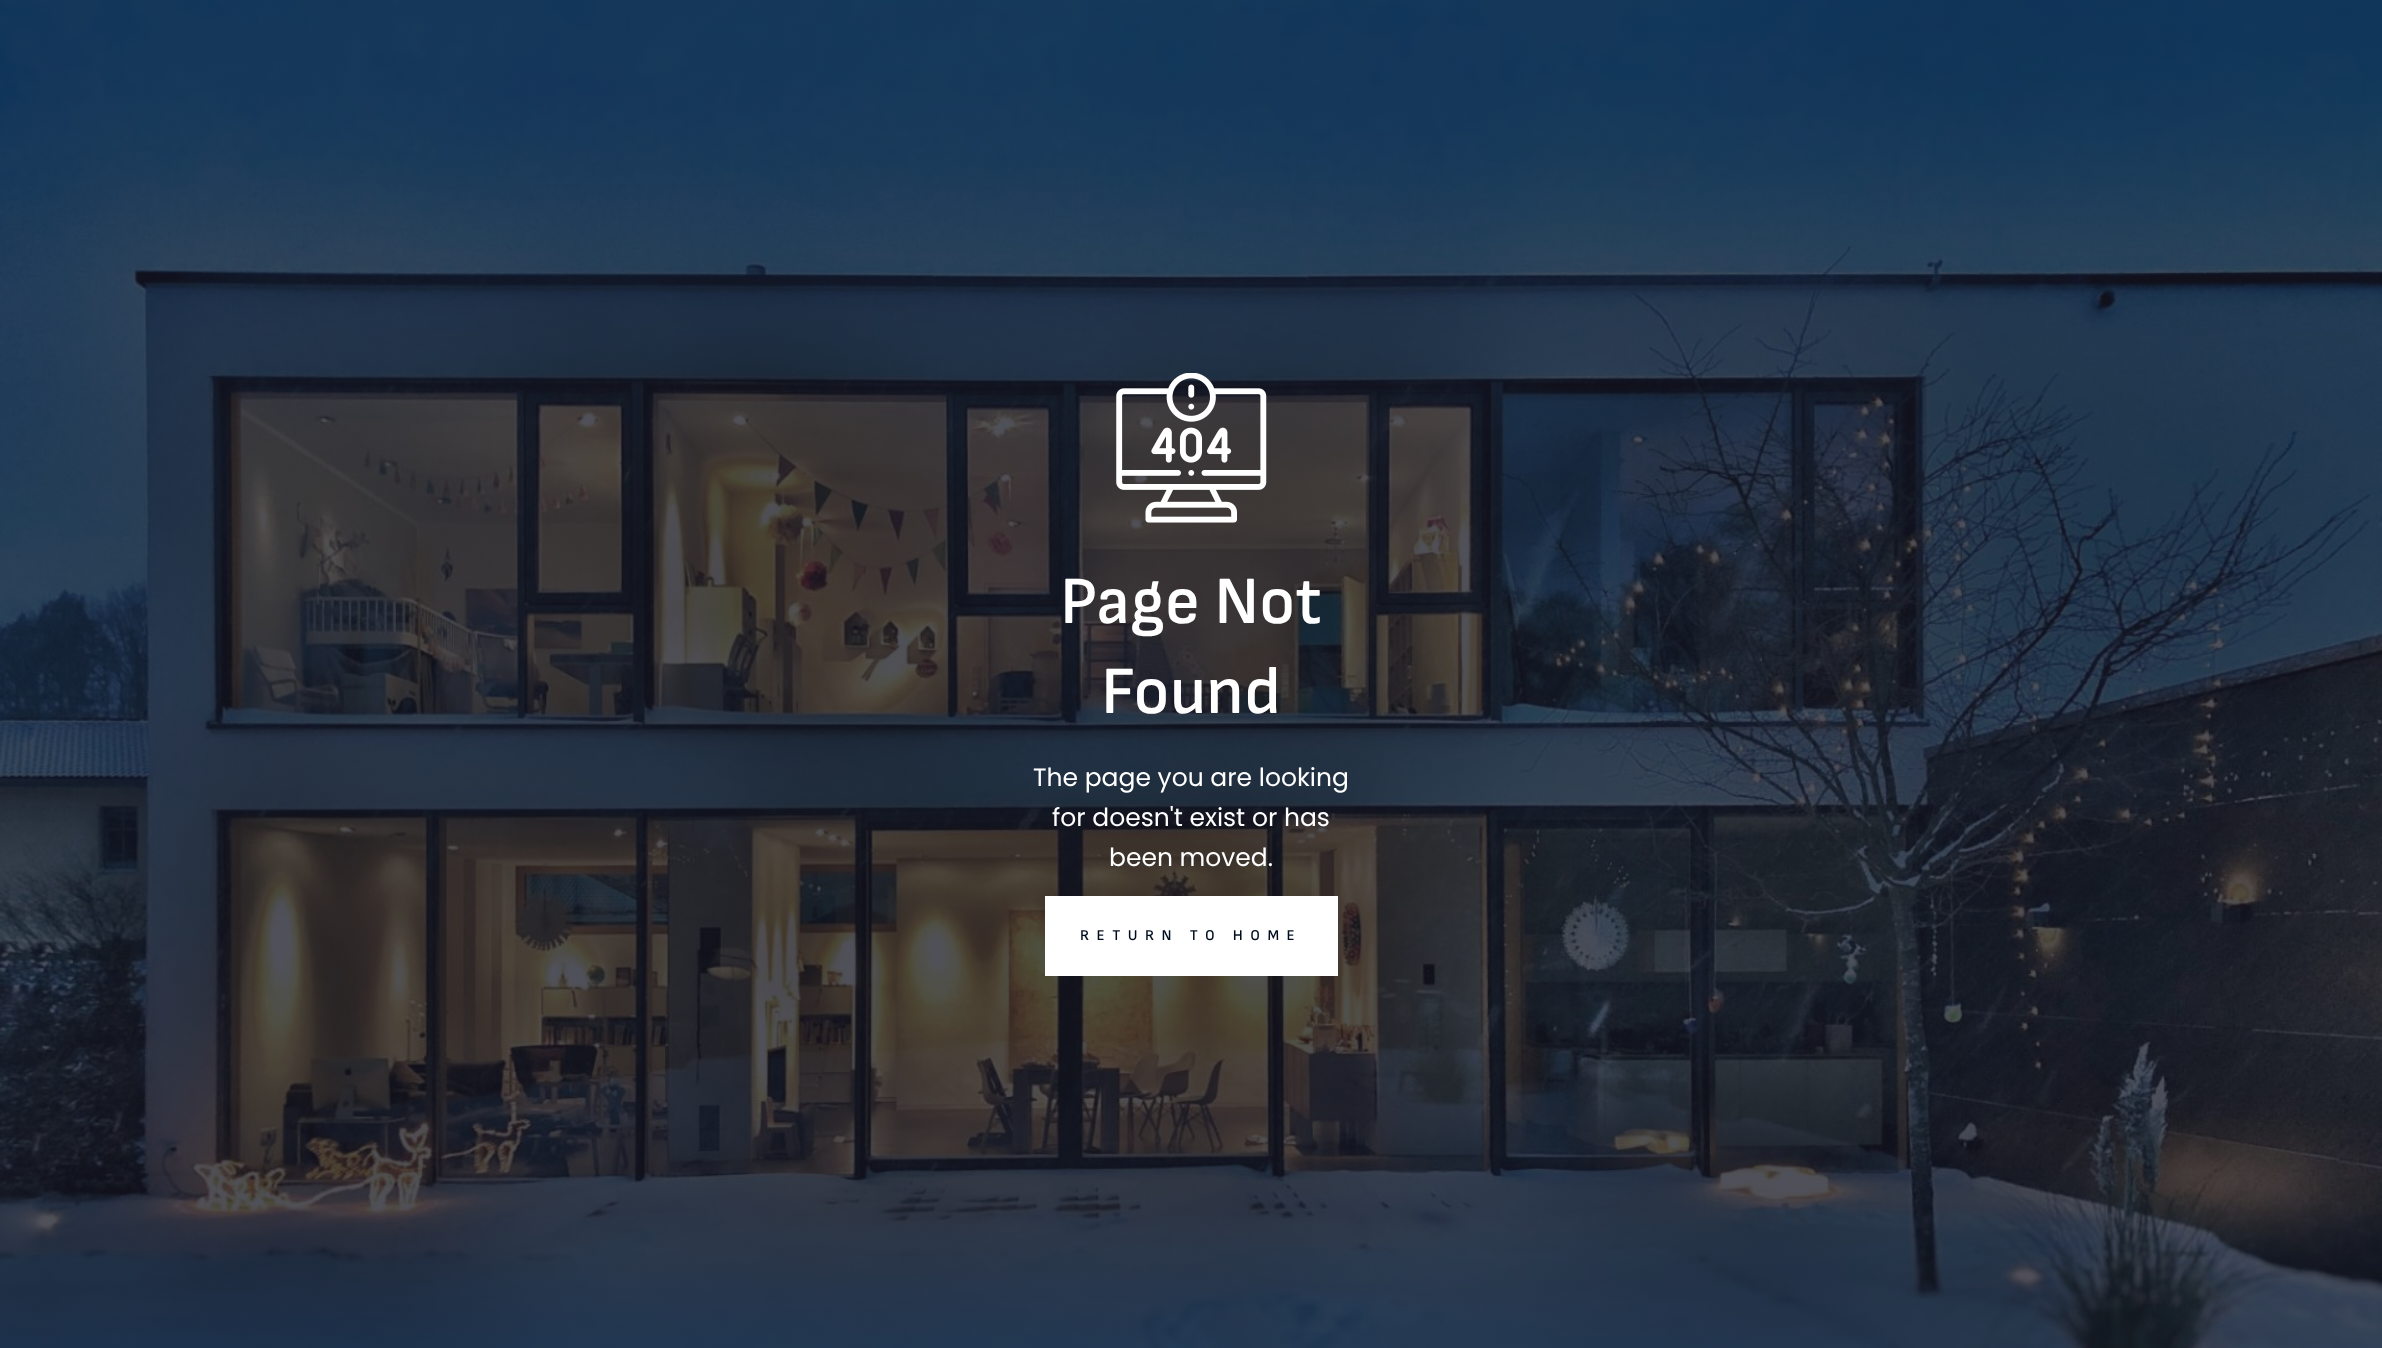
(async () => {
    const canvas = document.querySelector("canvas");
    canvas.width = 2382;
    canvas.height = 1348;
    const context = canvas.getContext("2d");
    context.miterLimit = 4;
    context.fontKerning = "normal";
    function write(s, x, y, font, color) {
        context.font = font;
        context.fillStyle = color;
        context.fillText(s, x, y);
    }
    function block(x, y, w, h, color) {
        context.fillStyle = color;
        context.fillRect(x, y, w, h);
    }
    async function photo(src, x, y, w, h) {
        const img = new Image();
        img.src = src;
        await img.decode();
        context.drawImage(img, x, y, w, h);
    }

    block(0, 0, 2382, 1348, "rgb(255, 255, 255)");
    await photo("media/1.png", 0, 0, 2382, 1348);
    await photo("media/2.png", 1116, 373, 151, 150);
    write("Page Not", 1060, 623, "600 67.5px Sofia Sans", "rgb(255, 255, 255)");
    write("Found", 1101, 713, "600 67.5px Sofia Sans", "rgb(255, 255, 255)");
    write("The page you are looking", 1033, 786, "25px Poppins", "rgb(255, 255, 255)");
    write("for doesn't exist or has", 1052, 826, "25px Poppins", "rgb(255, 255, 255)");
    write("been moved.", 1109, 866, "25px Poppins", "rgb(255, 255, 255)");
    block(1045, 896, 293, 80, "rgb(255, 255, 255)");
    context.letterSpacing = "7.5px";
    write("RETURN TO HOME", 1080, 940, "600 15px Sofia Sans", "rgb(0, 13, 31)");
})();
